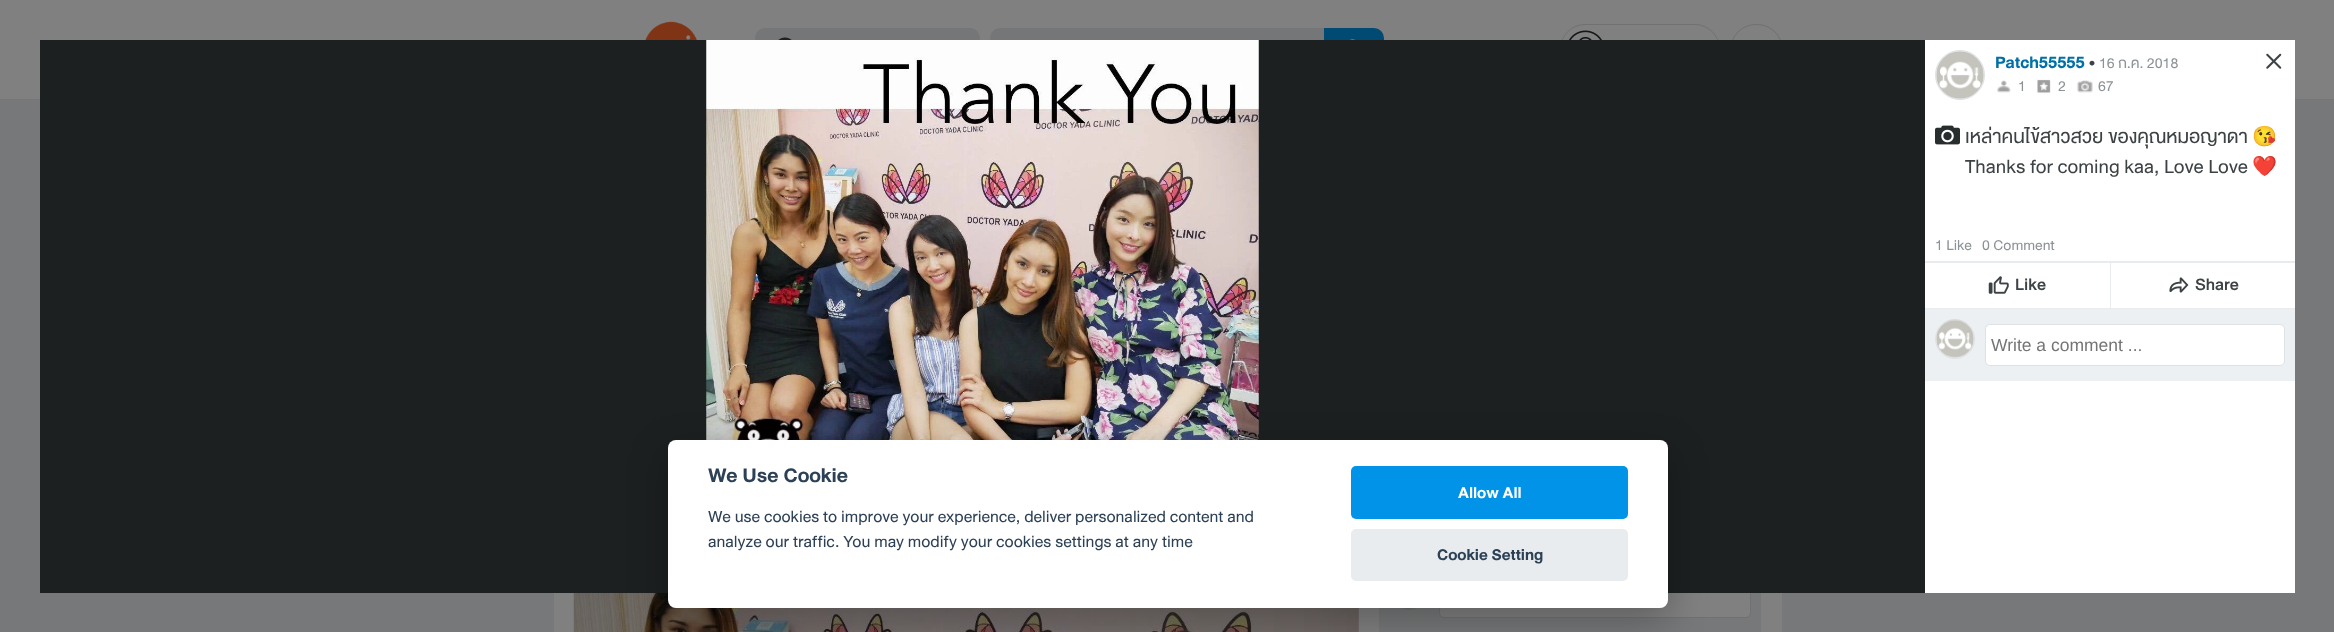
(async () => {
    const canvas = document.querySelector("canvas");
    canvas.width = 2334;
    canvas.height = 632;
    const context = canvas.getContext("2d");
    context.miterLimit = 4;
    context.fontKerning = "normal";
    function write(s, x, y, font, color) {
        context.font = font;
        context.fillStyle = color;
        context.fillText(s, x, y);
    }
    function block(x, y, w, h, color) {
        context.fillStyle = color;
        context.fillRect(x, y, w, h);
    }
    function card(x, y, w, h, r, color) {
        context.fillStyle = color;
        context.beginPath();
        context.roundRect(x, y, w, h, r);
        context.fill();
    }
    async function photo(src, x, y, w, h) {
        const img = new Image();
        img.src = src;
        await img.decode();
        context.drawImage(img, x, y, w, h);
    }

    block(0, 0, 2334, 632, "rgb(128, 128, 128)");
    block(0, 99, 2334, 1, "rgb(117, 118, 119)");
    await photo("media/1.png", 645, 21, 52, 19);
    card(755, 28, 225, 45, 10, "rgb(117, 118, 119)");
    await photo("media/2.png", 778, 37, 14, 3);
    context.beginPath();
    context.roundRect(990, 28, 334, 45, [10, 0, 0, 10]);
    context.fill();
    context.fillStyle = "rgb(0, 74, 116)";
    context.beginPath();
    context.roundRect(1324, 28, 60, 45, [0, 10, 10, 0]);
    context.fill();
    await photo("media/3.png", 1349, 39, 6, 1);
    context.beginPath();
    context.roundRect(1560.5, 24.5, 159, 51, 24.5);
    context.strokeStyle = "rgb(111, 113, 114)";
    context.stroke();
    await photo("media/4.png", 1569, 30, 33, 10);
    context.beginPath();
    context.roundRect(1730.5, 24.5, 52, 51, 25.5);
    context.stroke();
    block(0, 100, 2334, 532, "rgb(119, 120, 121)");
    block(554, 593, 1228, 39, "rgb(128, 128, 128)");
    await photo("media/5.png", 573, 593, 786, 39);
    block(1379, 593, 382, 39, "rgb(119, 120, 121)");
    context.beginPath();
    context.arc(1409, 590, 19.5, 0, Math.PI * 2);
    context.stroke();
    await photo("media/6.png", 1404, 608, 10, 1);
    context.fillStyle = "rgb(128, 128, 128)";
    context.beginPath();
    context.roundRect(1439.5, 575.5, 311, 42, 4.5);
    context.fill();
    context.stroke();
    block(1925, 40, 370, 553, "rgb(255, 255, 255)");
    block(40, 40, 1885, 553, "rgb(29, 32, 33)");
    await photo("media/7.png", 706, 40, 553, 400);
    await photo("media/8.png", 2266, 53, 16, 16);
    context.fillStyle = "rgb(237, 240, 242)";
    context.beginPath();
    context.arc(1960, 75, 24.5, 0, Math.PI * 2);
    context.fill();
    context.strokeStyle = "rgb(222, 226, 228)";
    context.stroke();
    await photo("media/9.png", 1936, 51, 48, 48);
    write("Patch55555", 1995, 68, "bold 17.5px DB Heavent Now", "rgb(0, 112, 168)");
    write("•", 2089, 68, "17.5px DB Heavent Now", "rgb(61, 66, 69)");
    write("16 ก.ค. 2018", 2099, 68, "15px DB Heavent Now", "rgb(140, 147, 150)");
    await photo("media/10.png", 1997, 80, 14, 13);
    write("1", 2018, 91, "15px DB Heavent Now", "rgb(140, 147, 150)");
    await photo("media/11.png", 2037, 79, 14, 14);
    write("2", 2058, 91, "15px DB Heavent Now", "rgb(140, 147, 150)");
    await photo("media/12.png", 2077, 80, 16, 13);
    write("67", 2098, 91, "15px DB Heavent Now", "rgb(140, 147, 150)");
    await photo("media/13.png", 1935, 125, 25, 20);
    write("เหล่าคนไข้สาวสวย ของคุณหมอญาดา", 1965, 143, "20px DB Heavent Now", "rgb(61, 66, 69)");
    write("😘", 2252, 143, "20px Noto Color Emoji", "rgb(61, 66, 69)");
    write("Thanks for coming kaa, Love Love", 1965, 173, "20px DB Heavent Now", "rgb(61, 66, 69)");
    write("❤️", 2252, 173, "20px Noto Color Emoji", "rgb(61, 66, 69)");
    write("1 Like", 1935, 250, "15px DB Heavent Now", "rgb(140, 147, 150)");
    write("0 Comment", 1982, 250, "15px DB Heavent Now", "rgb(140, 147, 150)");
    block(1925, 261, 370, 48, "rgb(233, 236, 238)");
    block(1925, 263, 185, 45, "rgb(255, 255, 255)");
    await photo("media/14.png", 1988, 276, 21, 18);
    write("Like", 2015, 290, "500 17.5px DB Heavent Now", "rgb(61, 66, 69)");
    block(2111, 263, 184, 45, "rgb(255, 255, 255)");
    await photo("media/15.png", 2169, 277, 20, 16);
    write("Share", 2195, 290, "500 17.5px DB Heavent Now", "rgb(61, 66, 69)");
    block(1925, 309, 370, 72, "rgb(237, 240, 242)");
    context.beginPath();
    context.arc(1955, 339, 19.5, 0, Math.PI * 2);
    context.stroke();
    await photo("media/16.png", 1936, 319, 38, 39);
    context.fillStyle = "rgb(255, 255, 255)";
    context.beginPath();
    context.roundRect(1985.5, 324.5, 299, 41, 4.5);
    context.fill();
    context.stroke();
    write("Write a comment ...", 1991, 351, "17.5px Liberation Sans", "rgb(117, 117, 117)");
    context.fillStyle = "rgba(2, 2, 3, 0.28)";
    context.filter = "blur(19px)";
    context.beginPath();
    context.roundRect(668, 453, 1000, 167, 8);
    context.fill();
    context.filter = "none";
    card(668, 440, 1000, 168, 8, "rgb(255, 255, 255)");
    write("We Use Cookie", 708, 482, "bold 21px DB Heavent Now", "rgb(45, 65, 86)");
    write("We use cookies to improve your experience, deliver personalized content and", 708, 522, "17px DB Heavent Now", "rgb(45, 65, 86)");
    write("analyze our traffic. You may modify your cookies settings at any time", 708, 547, "17px DB Heavent Now", "rgb(45, 65, 86)");
    card(1351, 466, 277, 53, 5, "rgb(0, 147, 232)");
    write("Allow All", 1458, 498, "bold 16.5px DB Heavent Now", "rgb(255, 255, 255)");
    card(1351, 529, 277, 52, 5, "rgb(233, 236, 238)");
    write("Cookie Setting", 1437, 560, "bold 16.5px DB Heavent Now", "rgb(45, 65, 86)");
})();
